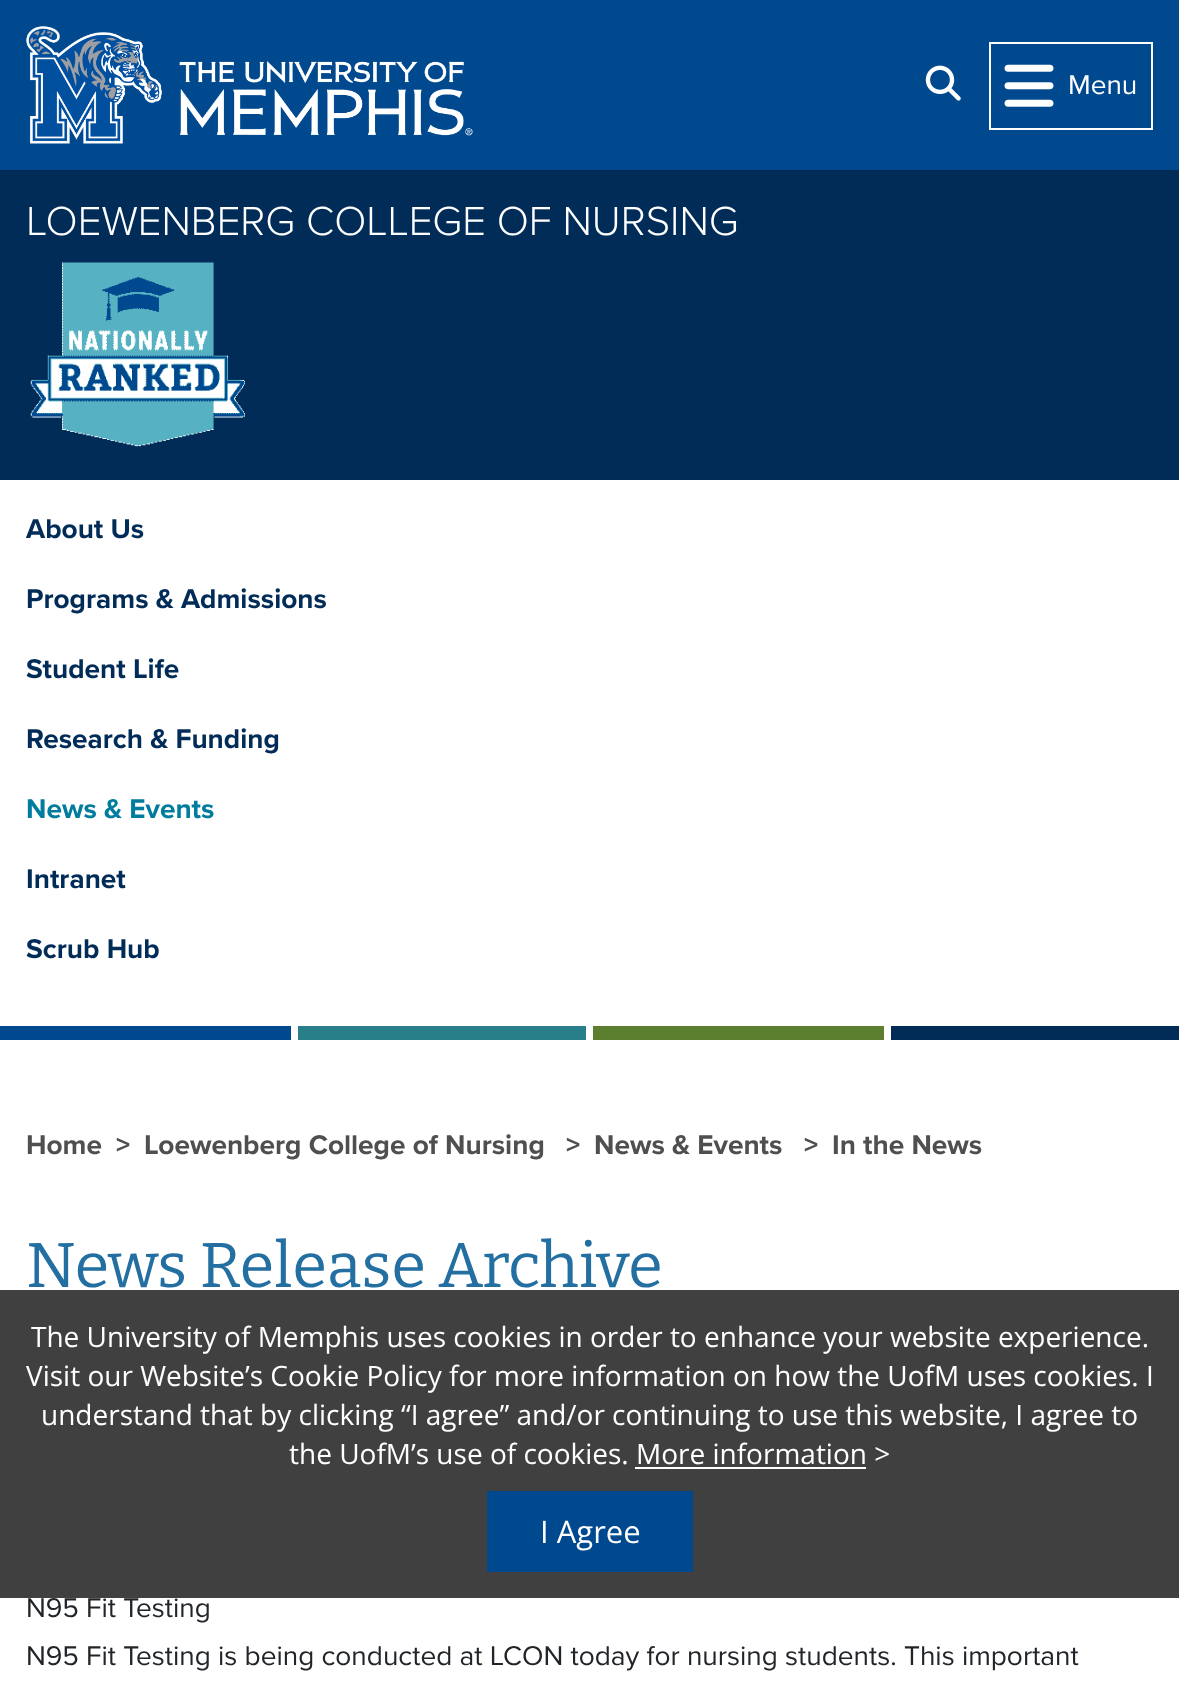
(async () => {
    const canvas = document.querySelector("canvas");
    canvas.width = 1179;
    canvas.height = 1702;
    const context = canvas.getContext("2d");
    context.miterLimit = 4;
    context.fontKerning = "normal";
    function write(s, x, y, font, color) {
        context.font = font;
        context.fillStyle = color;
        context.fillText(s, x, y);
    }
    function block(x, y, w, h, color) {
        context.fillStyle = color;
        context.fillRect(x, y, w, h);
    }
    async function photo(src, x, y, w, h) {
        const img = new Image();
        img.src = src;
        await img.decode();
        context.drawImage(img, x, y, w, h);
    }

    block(0, 0, 1179, 1702, "rgb(255, 255, 255)");
    block(0, 0, 1179, 170, "rgb(0, 73, 143)");
    await photo("media/1.png", 26, 26, 447, 118);
    await photo("media/2.png", 925, 65, 36, 36);
    context.strokeStyle = "rgb(255, 255, 255)";
    context.lineWidth = 2;
    context.strokeRect(990, 43, 162, 86);
    await photo("media/3.png", 1004, 64, 50, 43);
    write("Menu", 1068, 94, "28px Proxima Nova", "rgb(255, 255, 255)");
    block(0, 170, 1179, 310, "rgb(1, 44, 88)");
    write("LOEWENBERG COLLEGE OF NURSING", 26, 235, "300 42px Proxima Nova", "rgb(255, 255, 255)");
    await photo("media/4.png", 30, 262, 215, 185);
    write("About Us", 26, 538, "bold 28px Proxima Nova", "rgb(1, 44, 88)");
    write("Programs & Admissions", 26, 608, "bold 28px Proxima Nova", "rgb(1, 44, 88)");
    write("Student Life", 26, 678, "bold 28px Proxima Nova", "rgb(1, 44, 88)");
    write("Research & Funding", 26, 748, "bold 28px Proxima Nova", "rgb(1, 44, 88)");
    write("News & Events", 26, 818, "bold 28px Proxima Nova", "rgb(0, 124, 158)");
    write("Intranet", 26, 888, "bold 28px Proxima Nova", "rgb(1, 44, 88)");
    write("Scrub Hub", 26, 958, "bold 28px Proxima Nova", "rgb(1, 44, 88)");
    block(0, 1026, 291, 14, "rgb(0, 73, 143)");
    block(298, 1026, 288, 14, "rgb(40, 127, 138)");
    block(593, 1026, 291, 14, "rgb(91, 127, 46)");
    block(891, 1026, 288, 14, "rgb(1, 44, 88)");
    write("Home", 26, 1154, "bold 28px Proxima Nova", "rgb(79, 79, 79)");
    write(">", 116, 1154, "bold 28px Proxima Nova", "rgb(79, 79, 79)");
    write("Loewenberg College of Nursing", 144, 1154, "bold 28px Proxima Nova", "rgb(79, 79, 79)");
    write(">", 566, 1154, "bold 28px Proxima Nova", "rgb(79, 79, 79)");
    write("News & Events", 594, 1154, "bold 28px Proxima Nova", "rgb(79, 79, 79)");
    write(">", 804, 1154, "bold 28px Proxima Nova", "rgb(79, 79, 79)");
    write("In the News", 832, 1154, "bold 28px Proxima Nova", "rgb(79, 79, 79)");
    write("News Release Archive", 26, 1287, "63px Bitter", "rgb(35, 111, 161)");
    write("N95 Fit Testing", 26, 1617, "28px Proxima Nova", "rgb(33, 37, 41)");
    write("N95 Fit Testing is being conducted at LCON today for nursing students. This important", 26, 1665, "28px Proxima Nova", "rgb(33, 37, 41)");
    block(0, 1290, 1179, 308, "rgb(64, 64, 64)");
    write("The University of Memphis uses cookies in order to enhance your website experience.", 31, 1347, "28px Open Sans", "rgb(255, 255, 255)");
    write("Visit our Website’s Cookie Policy for more information on how the UofM uses cookies. I", 26, 1386, "28px Open Sans", "rgb(255, 255, 255)");
    write("understand that by clicking “I agree” and/or continuing to use this website, I agree to", 41, 1425, "28px Open Sans", "rgb(255, 255, 255)");
    write("the UofM’s use of cookies. More information >", 289, 1464, "28px Open Sans", "rgb(255, 255, 255)");
    block(635, 1467, 231, 2, "rgb(255, 255, 255)");
    block(487, 1491, 206, 81, "rgb(0, 73, 143)");
    write("I Agree", 540, 1543, "31px Open Sans", "rgb(255, 255, 255)");
})();
